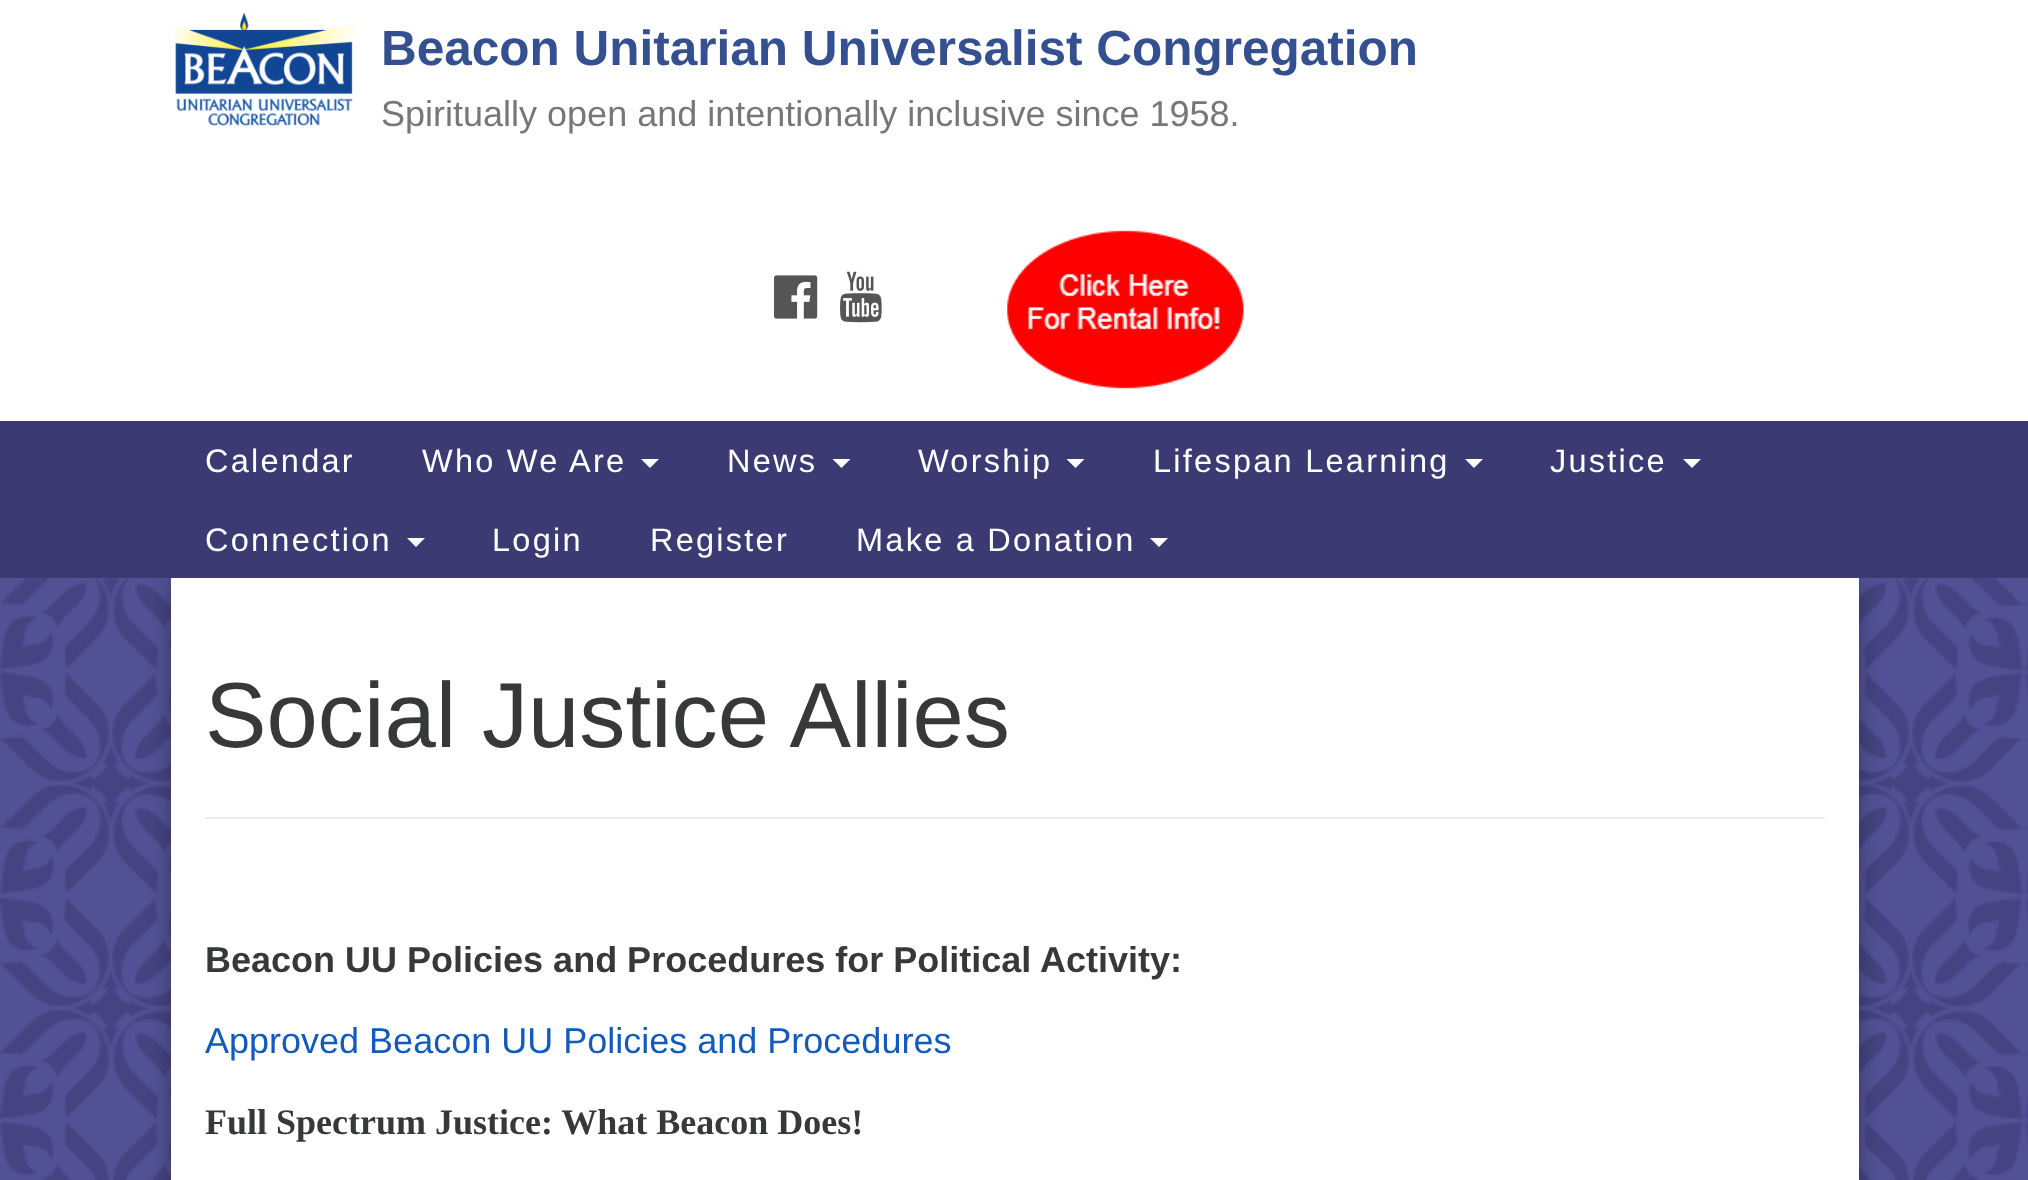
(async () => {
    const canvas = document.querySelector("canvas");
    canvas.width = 2028;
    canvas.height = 1180;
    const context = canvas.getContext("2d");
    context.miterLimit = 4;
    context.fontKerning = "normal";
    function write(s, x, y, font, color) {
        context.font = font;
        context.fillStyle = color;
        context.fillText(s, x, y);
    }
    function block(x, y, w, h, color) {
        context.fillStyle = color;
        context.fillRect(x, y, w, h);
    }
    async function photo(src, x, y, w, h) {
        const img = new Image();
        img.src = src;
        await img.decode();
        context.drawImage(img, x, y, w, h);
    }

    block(0, 0, 2028, 1180, "rgb(255, 255, 255)");
    await photo("media/1.png", 0, 578, 2028, 602);
    await photo("media/2.png", 173, 12, 183, 114);
    write("Beacon Unitarian Universalist Congregation", 381, 65, "bold 49.5px Liberation Sans", "rgb(52, 80, 145)");
    write("Spiritually open and intentionally inclusive since 1958.", 381, 126, "36px Liberation Sans", "rgb(119, 119, 119)");
    await photo("media/3.png", 774, 275, 44, 44);
    await photo("media/4.png", 840, 271, 42, 52);
    await photo("media/5.png", 1007, 230, 237, 159);
    context.fillStyle = "rgba(0, 0, 0, 0.3)";
    context.filter = "blur(11px)";
    context.beginPath();
    context.rect(171, 578, 1688, 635);
    context.fill();
    context.filter = "none";
    block(0, 421, 2028, 157, "rgb(60, 58, 115)");
    context.letterSpacing = "2.25px";
    write("Calendar", 205, 472, "32.5px Liberation Sans", "rgb(255, 255, 255)");
    write("Who We Are", 422, 472, "32.5px Liberation Sans", "rgb(255, 255, 255)");
    context.beginPath();
    context.moveTo(641, 459);
    context.lineTo(659, 459);
    context.lineTo(650, 468);
    context.closePath();
    context.fill();
    write("News", 727, 472, "32.5px Liberation Sans", "rgb(255, 255, 255)");
    context.beginPath();
    context.moveTo(832.5, 459);
    context.lineTo(850.5, 459);
    context.lineTo(841.5, 468);
    context.closePath();
    context.fill();
    write("Worship", 918, 472, "32.5px Liberation Sans", "rgb(255, 255, 255)");
    context.beginPath();
    context.moveTo(1066.5, 459);
    context.lineTo(1084.5, 459);
    context.lineTo(1075.5, 468);
    context.closePath();
    context.fill();
    write("Lifespan Learning", 1153, 472, "32.5px Liberation Sans", "rgb(255, 255, 255)");
    context.beginPath();
    context.moveTo(1465, 459);
    context.lineTo(1483, 459);
    context.lineTo(1474, 468);
    context.closePath();
    context.fill();
    write("Justice", 1550, 472, "32.5px Liberation Sans", "rgb(255, 255, 255)");
    context.beginPath();
    context.moveTo(1683, 459);
    context.lineTo(1701, 459);
    context.lineTo(1692, 468);
    context.closePath();
    context.fill();
    write("Connection", 205, 551, "32.5px Liberation Sans", "rgb(255, 255, 255)");
    context.beginPath();
    context.moveTo(407, 538);
    context.lineTo(425, 538);
    context.lineTo(416, 547);
    context.closePath();
    context.fill();
    write("Login", 492, 551, "32.5px Liberation Sans", "rgb(255, 255, 255)");
    write("Register", 650, 551, "32.5px Liberation Sans", "rgb(255, 255, 255)");
    write("Make a Donation", 856, 551, "32.5px Liberation Sans", "rgb(255, 255, 255)");
    context.beginPath();
    context.moveTo(1150, 538);
    context.lineTo(1168, 538);
    context.lineTo(1159, 547);
    context.closePath();
    context.fill();
    block(171, 578, 1688, 602, "rgb(255, 255, 255)");
    block(205, 817, 1620, 2, "rgb(238, 238, 238)");
    context.letterSpacing = "0px";
    write("Social Justice Allies", 205, 747, "92.25px Liberation Sans", "rgb(55, 56, 57)");
    write("Beacon UU Policies and Procedures for Political Activity:", 205, 972, "bold 36px Liberation Sans", "rgb(55, 56, 57)");
    write("Approved Beacon UU Policies and Procedures", 205, 1053, "36px Liberation Sans", "rgb(18, 90, 187)");
    write("Full Spectrum Justice: What Beacon Does!", 205, 1134, "bold 36px Liberation Serif", "rgb(55, 56, 57)");
})();
